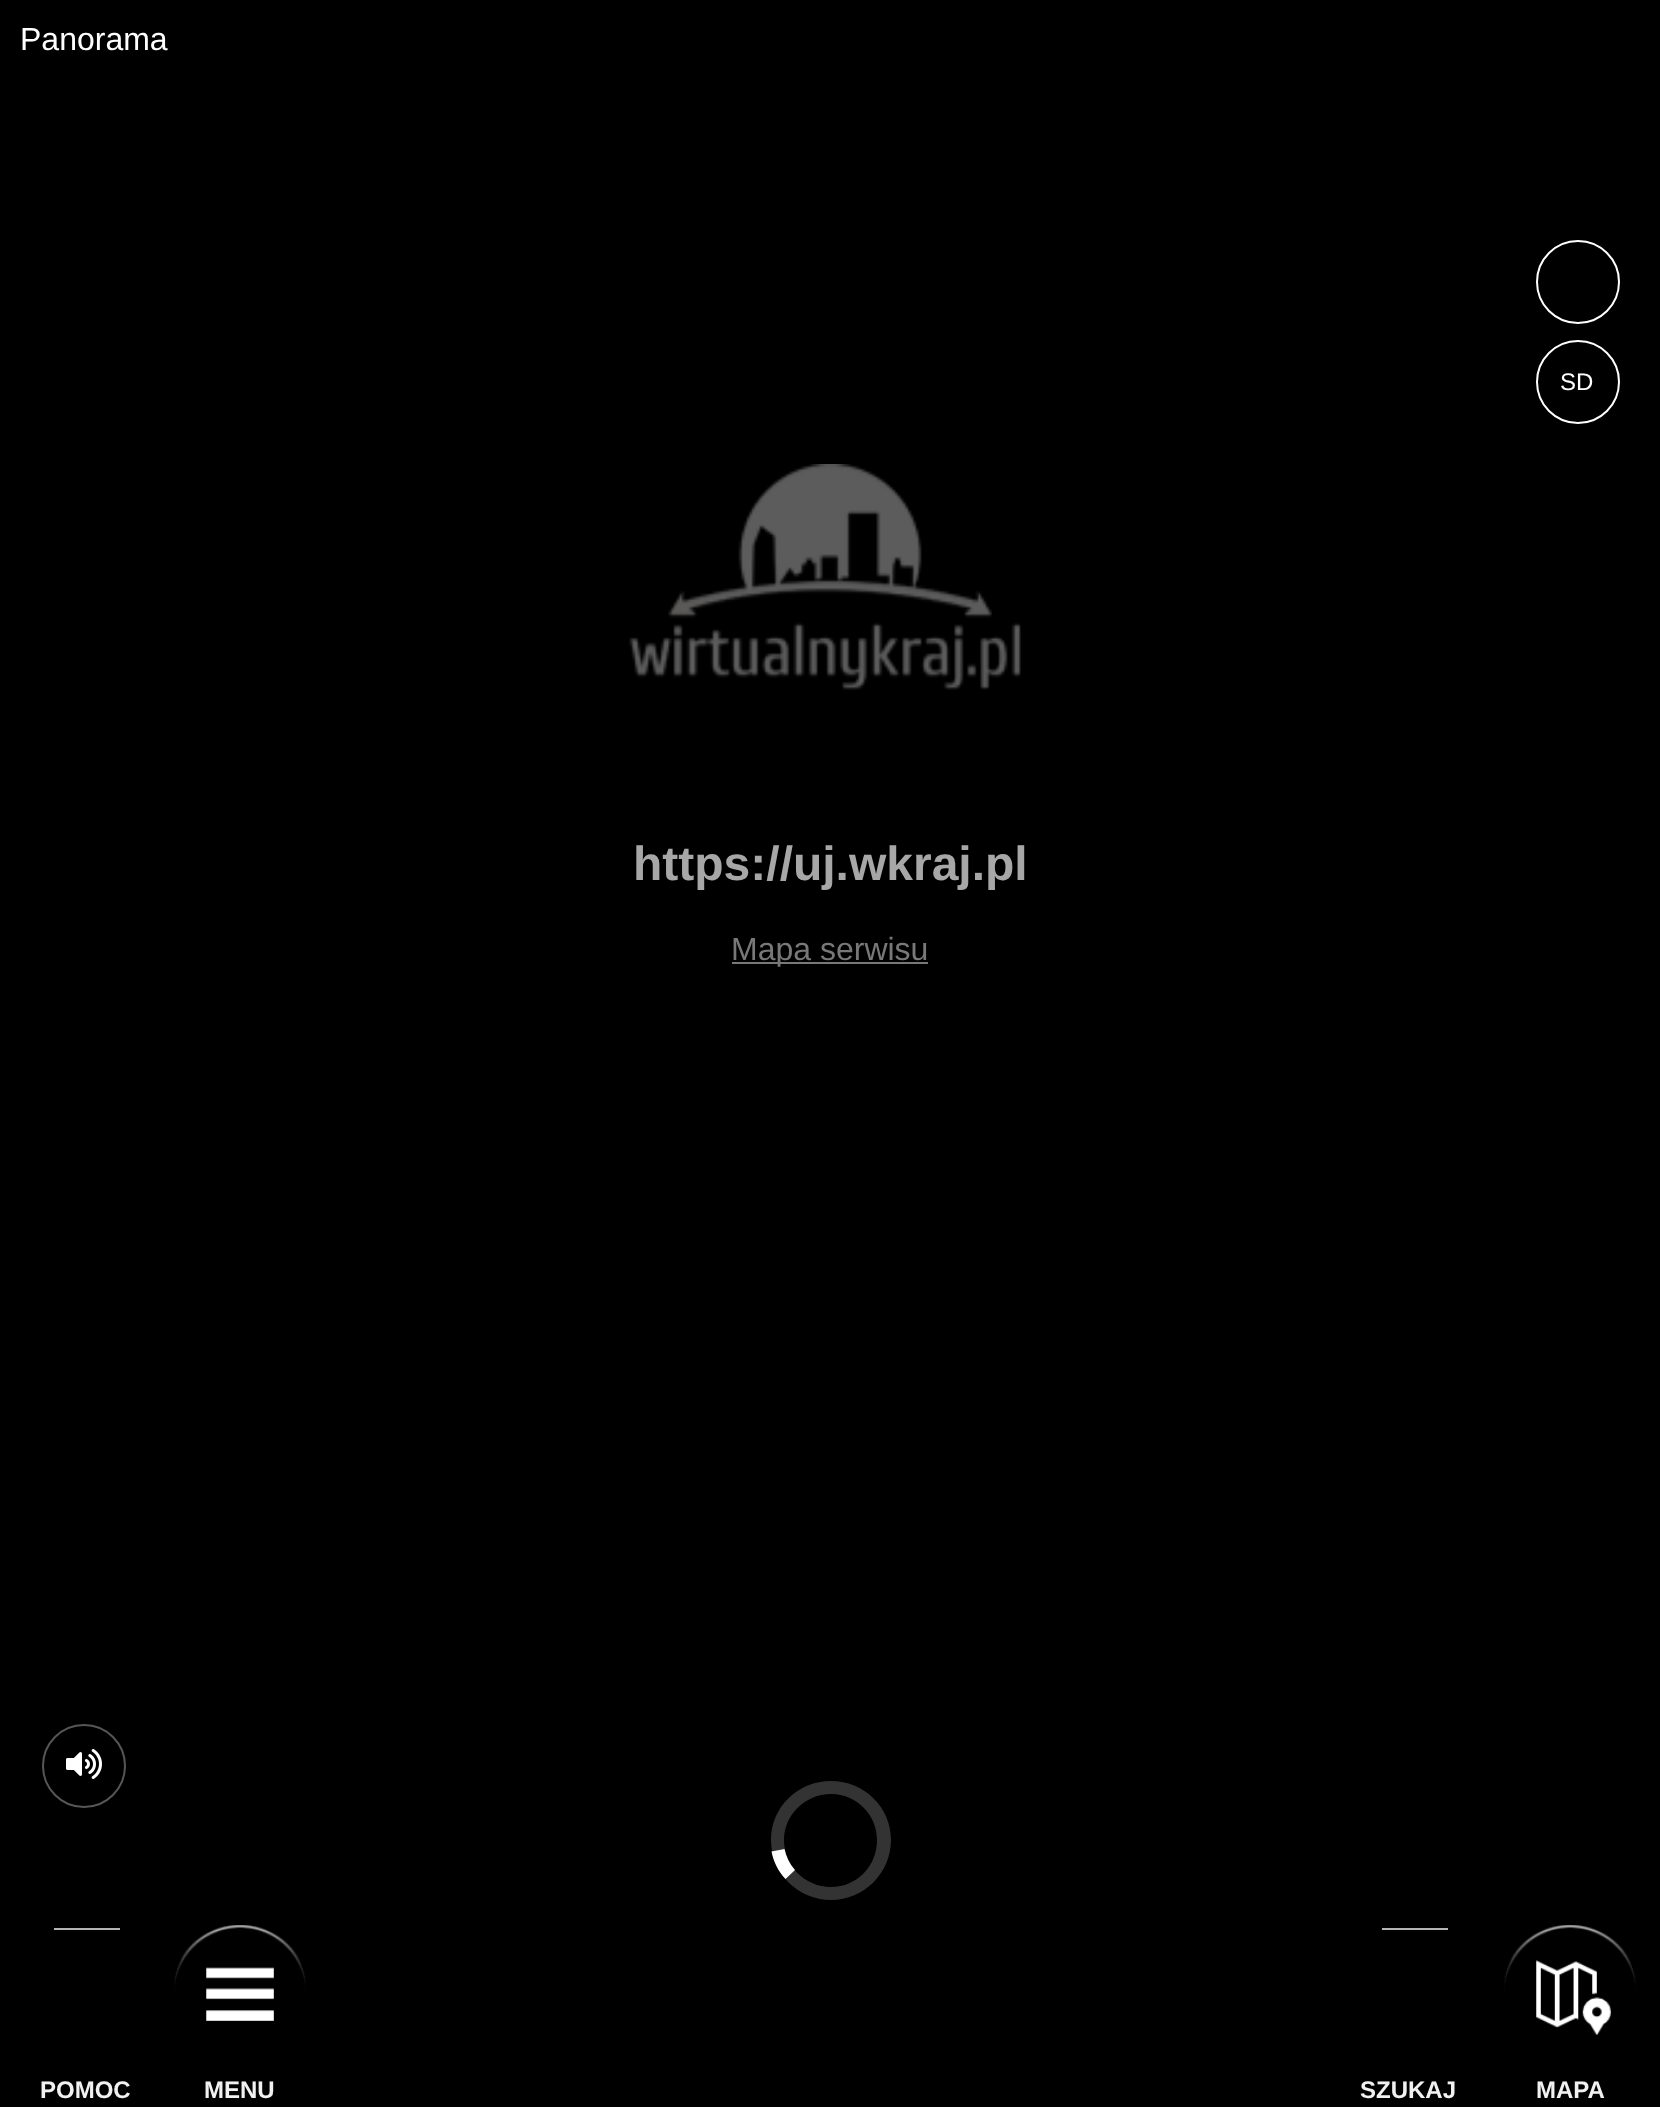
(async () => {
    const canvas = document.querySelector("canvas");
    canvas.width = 1660;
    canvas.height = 2107;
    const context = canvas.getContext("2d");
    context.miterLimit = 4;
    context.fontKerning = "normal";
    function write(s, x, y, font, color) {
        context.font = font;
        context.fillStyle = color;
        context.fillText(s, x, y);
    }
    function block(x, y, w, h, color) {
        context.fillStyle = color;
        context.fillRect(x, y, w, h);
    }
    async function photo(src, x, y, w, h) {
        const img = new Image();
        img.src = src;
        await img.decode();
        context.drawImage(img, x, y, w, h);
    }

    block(0, 0, 1660, 2107, "rgb(0, 0, 0)");
    write("Panorama", 20, 50, "32px Liberation Sans", "rgb(255, 255, 255)");
    context.beginPath();
    context.arc(1578, 282, 41, 0, Math.PI * 2);
    context.strokeStyle = "rgb(255, 255, 255)";
    context.lineWidth = 2;
    context.stroke();
    context.beginPath();
    context.arc(1578, 382, 41, 0, Math.PI * 2);
    context.stroke();
    write("SD", 1560, 390, "24px Liberation Sans", "rgb(255, 255, 255)");
    context.beginPath();
    context.arc(84, 1766, 41, 0, Math.PI * 2);
    context.strokeStyle = "rgb(86, 86, 86)";
    context.stroke();
    await photo("media/1.png", 66, 1749, 36, 30);
    block(54, 1928, 66, 2, "rgb(179, 179, 179)");
    block(1382, 1928, 66, 2, "rgb(179, 179, 179)");
    write("POMOC", 40, 2098, "bold 24px Liberation Sans", "rgb(241, 241, 241)");
    await photo("media/2.png", 174, 1925, 132, 96);
    write("MENU", 204, 2098, "bold 24px Liberation Sans", "rgb(241, 241, 241)");
    write("SZUKAJ", 1360, 2098, "bold 24px Liberation Sans", "rgb(241, 241, 241)");
    await photo("media/3.png", 1504, 1925, 132, 110);
    write("MAPA", 1536, 2098, "bold 24px Liberation Sans", "rgb(241, 241, 241)");
    await photo("media/4.png", 629, 464, 392, 226);
    write("https://uj.wkraj.pl", 633, 880, "bold 48px Liberation Sans", "rgb(167, 167, 167)");
    block(732, 962, 196, 2, "rgb(120, 120, 120)");
    write("Mapa serwisu", 731, 960, "32px Liberation Sans", "rgb(120, 120, 120)");
    context.fillStyle = "rgb(51, 51, 51)";
    context.beginPath();
    context.moveTo(831, 1781);
    context.bezierCurveTo(798, 1781, 771, 1807, 771, 1840);
    context.bezierCurveTo(771, 1873, 798, 1900, 831, 1900);
    context.bezierCurveTo(864, 1900, 891, 1873, 891, 1840);
    context.bezierCurveTo(891, 1807, 864, 1781, 831, 1781);
    context.closePath();
    context.moveTo(831, 1887);
    context.bezierCurveTo(805, 1887, 784, 1866, 784, 1840);
    context.bezierCurveTo(784, 1815, 805, 1794, 831, 1794);
    context.bezierCurveTo(857, 1794, 877, 1815, 877, 1840);
    context.bezierCurveTo(877, 1866, 857, 1887, 831, 1887);
    context.closePath();
    context.fill();
    context.fillStyle = "rgb(255, 255, 255)";
    context.beginPath();
    context.moveTo(784.5, 1849);
    context.lineTo(771.5, 1851.5);
    context.bezierCurveTo(773.5, 1861.5, 778, 1871, 785.5, 1879);
    context.lineTo(795, 1870);
    context.bezierCurveTo(789.5, 1864, 786, 1856.5, 784.5, 1849);
    context.closePath();
    context.fill();
})();
